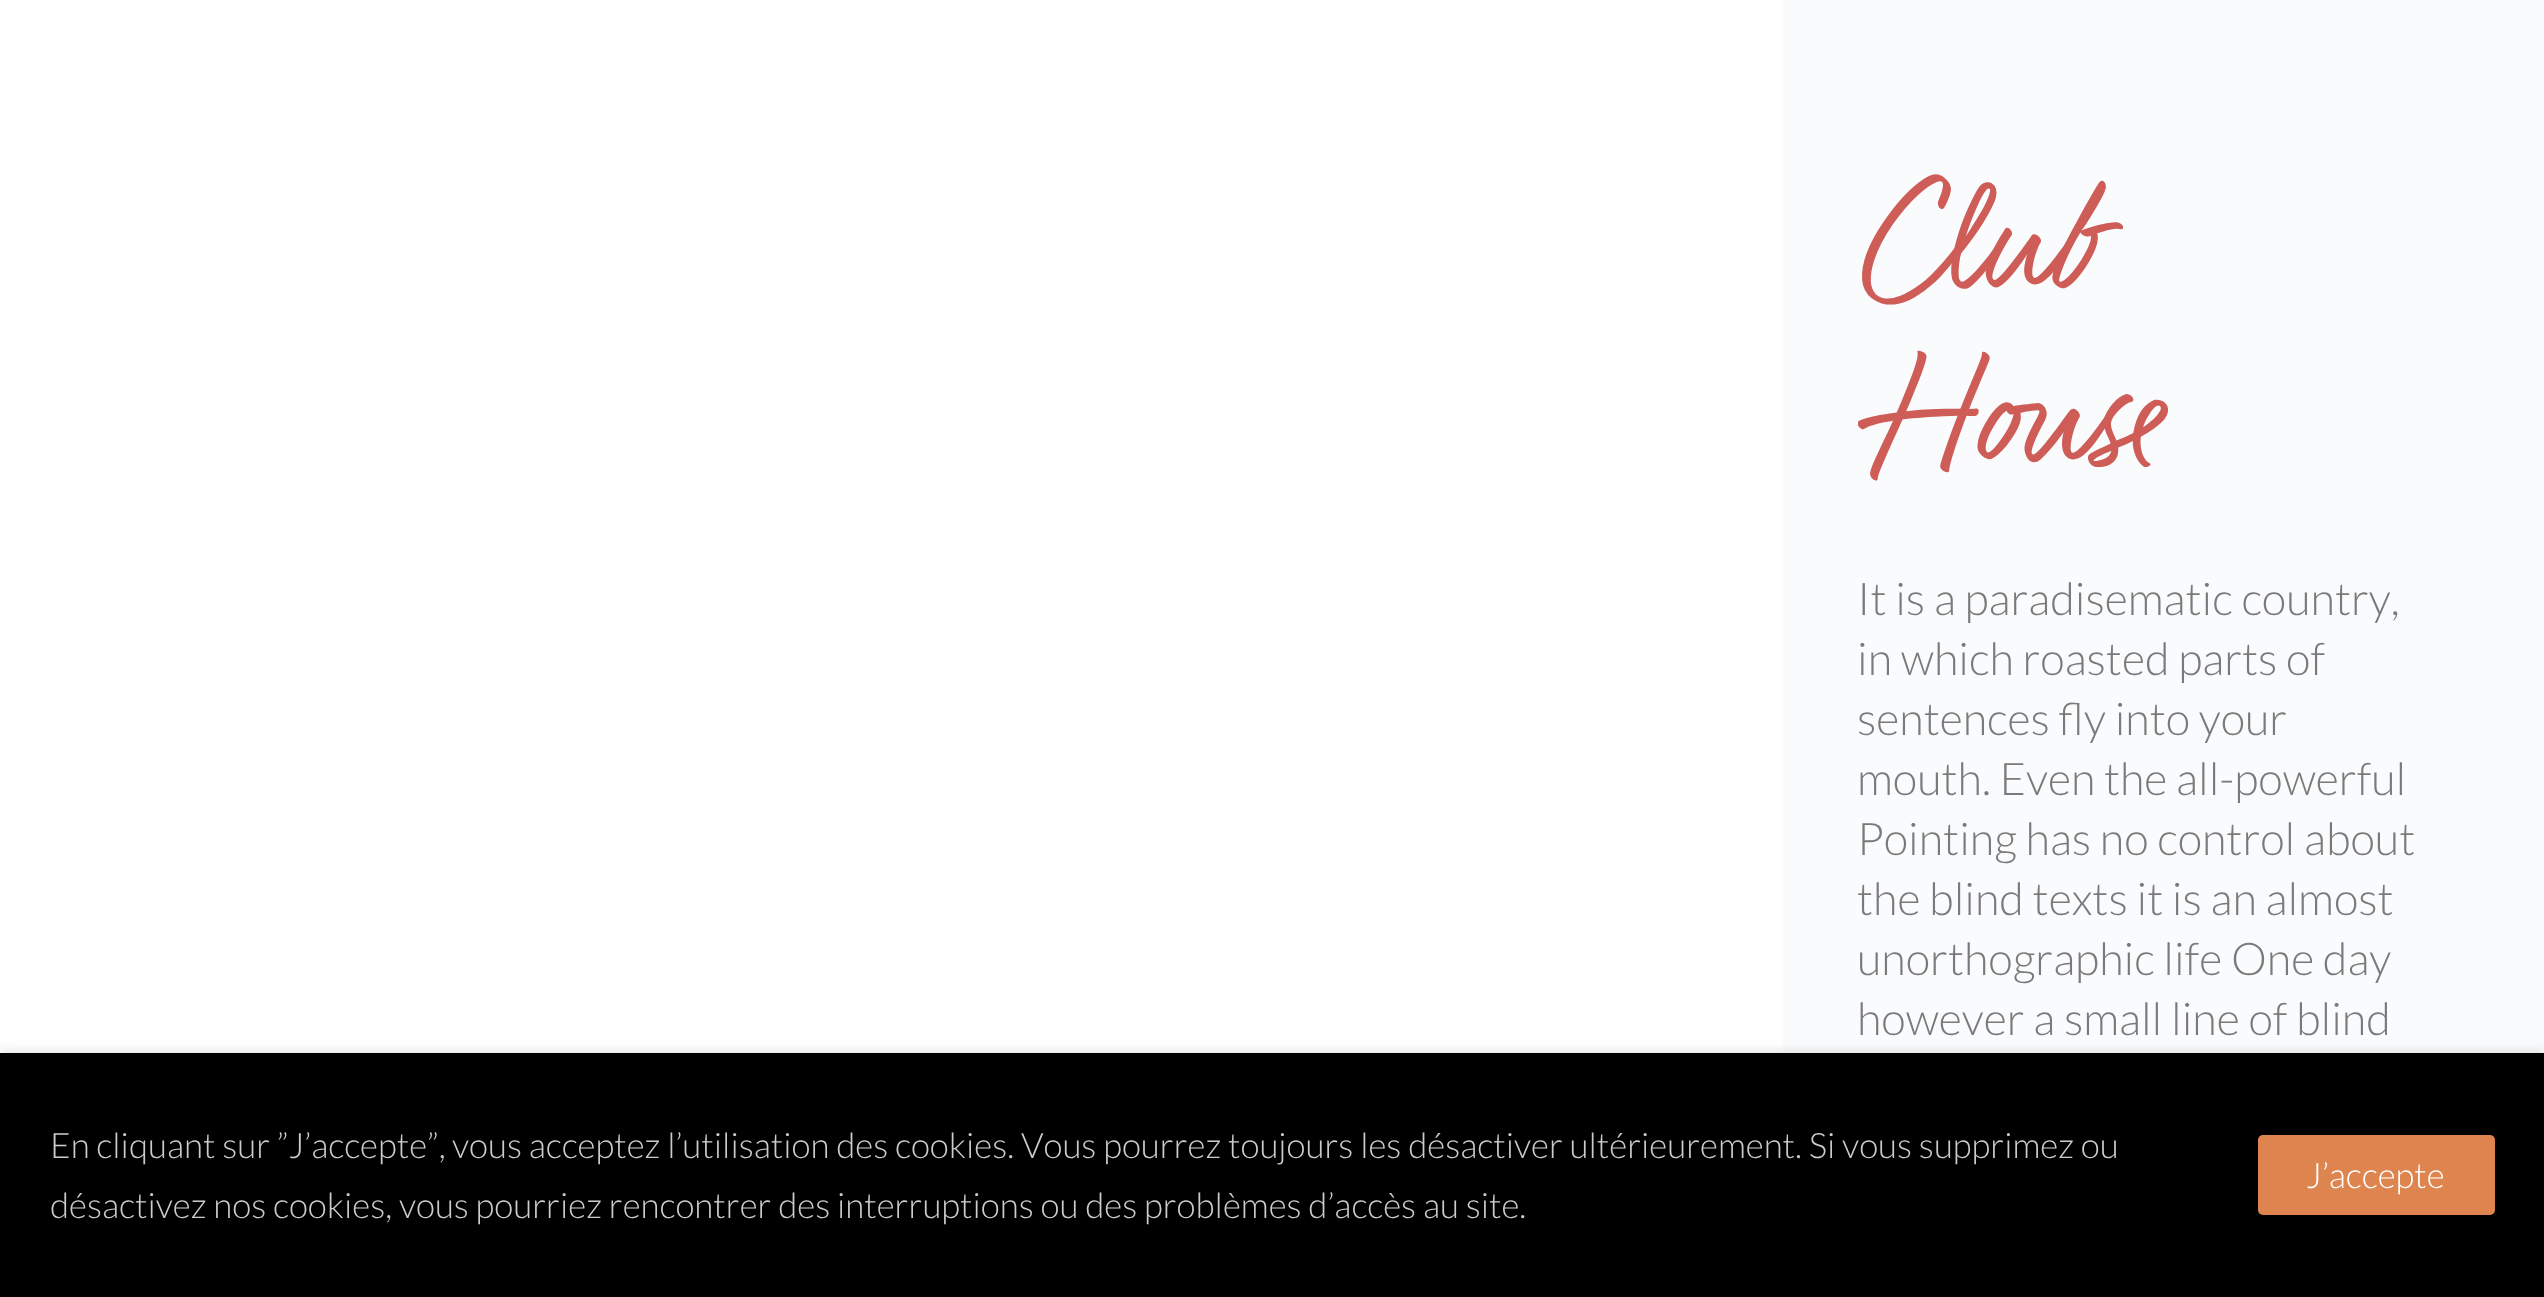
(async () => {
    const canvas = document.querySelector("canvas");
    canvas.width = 2544;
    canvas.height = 1297;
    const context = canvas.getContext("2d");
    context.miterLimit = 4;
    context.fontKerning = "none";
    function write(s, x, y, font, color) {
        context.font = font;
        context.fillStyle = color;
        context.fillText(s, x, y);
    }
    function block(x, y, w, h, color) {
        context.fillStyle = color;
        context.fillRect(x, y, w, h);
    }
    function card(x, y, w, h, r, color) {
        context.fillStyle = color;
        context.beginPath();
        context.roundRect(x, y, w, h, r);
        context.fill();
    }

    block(0, 0, 2544, 1297, "rgb(255, 255, 255)");
    block(1783, 0, 761, 1053, "rgb(250, 251, 253)");
    write("Club", 1857, 285, "175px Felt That", "rgb(206, 92, 87)");
    context.save();
    context.beginPath();
    context.rect(1858, 0, 562, 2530);
    context.clip();
    write("House", 1857, 460, "175px Felt That", "rgb(206, 92, 87)");
    context.restore();
    write("It is a paradisematic country,", 1857, 615, "300 45px Lato", "rgb(122, 122, 122)");
    write("in which roasted parts of", 1857, 675, "300 45px Lato", "rgb(122, 122, 122)");
    write("sentences fly into your", 1857, 735, "300 45px Lato", "rgb(122, 122, 122)");
    write("mouth. Even the all-powerful", 1857, 795, "300 45px Lato", "rgb(122, 122, 122)");
    write("Pointing has no control about", 1857, 855, "300 45px Lato", "rgb(122, 122, 122)");
    write("the blind texts it is an almost", 1857, 915, "300 45px Lato", "rgb(122, 122, 122)");
    write("unorthographic life One day", 1857, 975, "300 45px Lato", "rgb(122, 122, 122)");
    write("however a small line of blind", 1857, 1035, "300 45px Lato", "rgb(122, 122, 122)");
    context.fillStyle = "rgba(12, 12, 13, 0.1)";
    context.filter = "blur(5px)";
    context.beginPath();
    context.rect(0, 1050, 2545, 245);
    context.fill();
    context.filter = "none";
    block(0, 1053, 2544, 244, "rgb(0, 0, 0)");
    write("En cliquant sur ”J’accepte”,", 50, 1158, "300 35px Lato", "rgb(204, 204, 204)");
    write("vous acceptez l’utilisation des cookies. Vous pourrez toujours les désactiver ultérieurement. Si vous supprimez ou", 452, 1158, "300 35px Lato", "rgb(204, 204, 204)");
    write("désactivez nos cookies, vous pourriez rencontrer des interruptions ou des problèmes d’accès au site.", 50, 1218, "300 35px Lato", "rgb(204, 204, 204)");
    card(2258, 1135, 237, 80, 5, "rgb(222, 132, 79)");
    write("J’accepte", 2306, 1188, "300 35px Lato", "rgb(255, 255, 255)");
})();
